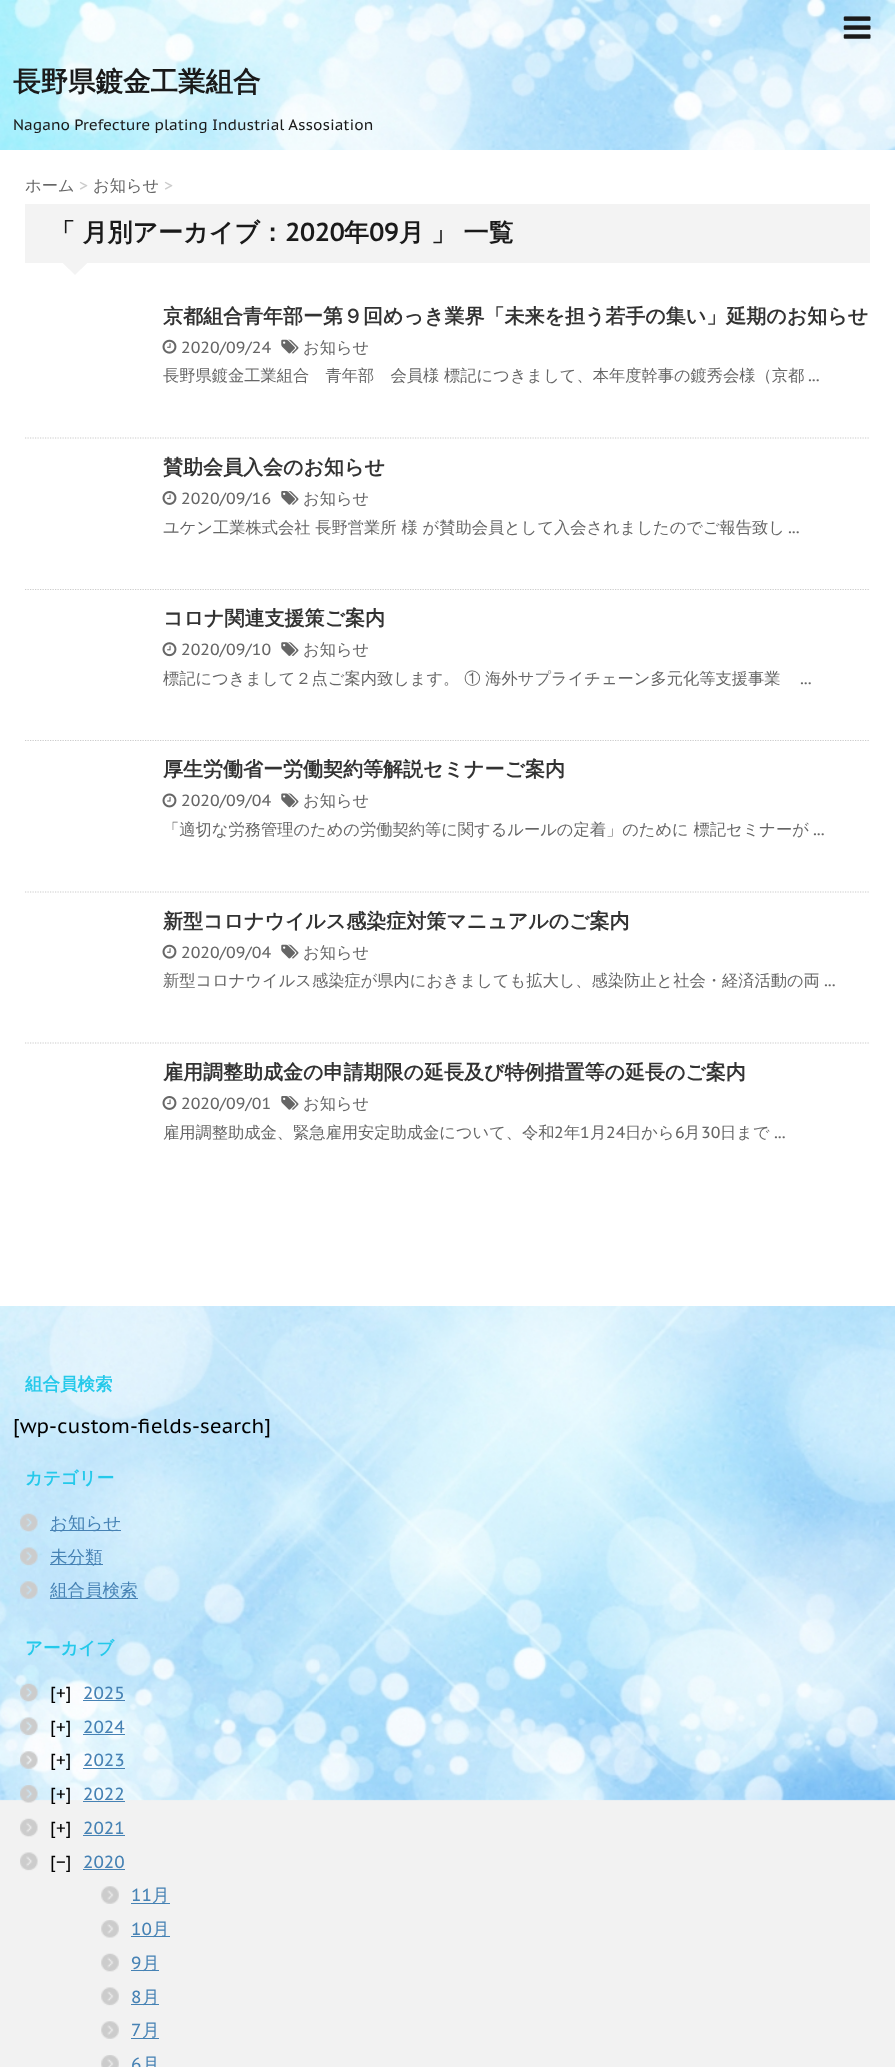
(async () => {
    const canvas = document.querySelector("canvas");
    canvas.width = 895;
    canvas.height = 2067;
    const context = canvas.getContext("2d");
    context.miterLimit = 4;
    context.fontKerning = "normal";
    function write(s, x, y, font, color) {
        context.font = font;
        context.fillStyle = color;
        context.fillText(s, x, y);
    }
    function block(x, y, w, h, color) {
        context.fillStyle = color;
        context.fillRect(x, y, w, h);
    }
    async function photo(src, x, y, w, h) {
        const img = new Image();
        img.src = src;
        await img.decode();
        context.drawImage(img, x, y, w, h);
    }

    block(0, 0, 895, 2067, "rgb(242, 242, 242)");
    await photo("media/1.png", 0, 0, 895, 1801);
    await photo("media/2.png", 843, 16, 28, 23);
    write("長野県鍍金工業組合", 13, 91, "bold 27.5px WenQuanYi Zen Hei", "rgb(26, 26, 26)");
    write("Nagano Prefecture plating Industrial Assosiation", 13, 130, "15px PT Sans Caption", "rgb(26, 26, 26)");
    block(0, 150, 895, 1156, "rgb(255, 255, 255)");
    write("ホーム", 25, 191, "500 16.25px WenQuanYi Zen Hei", "rgb(102, 102, 102)");
    write(">", 79, 191, "16.25px PT Sans Caption", "rgb(204, 204, 204)");
    write("お知らせ", 93, 191, "500 16.25px WenQuanYi Zen Hei", "rgb(102, 102, 102)");
    write(">", 164, 191, "16.25px PT Sans Caption", "rgb(204, 204, 204)");
    block(25, 204, 845, 59, "rgb(243, 243, 243)");
    write("「 月別アーカイブ：", 50, 241, "bold 25px WenQuanYi Zen Hei", "rgb(26, 26, 26)");
    write("2020", 285, 241, "bold 25px PT Sans Caption", "rgb(26, 26, 26)");
    write("年", 344, 241, "bold 25px WenQuanYi Zen Hei", "rgb(26, 26, 26)");
    write("09", 369, 241, "bold 25px PT Sans Caption", "rgb(26, 26, 26)");
    write("月", 399, 241, "bold 25px WenQuanYi Zen Hei", "rgb(26, 26, 26)");
    write("」 一覧", 431, 241, "bold 25px WenQuanYi Zen Hei", "rgb(26, 26, 26)");
    context.fillStyle = "rgb(243, 243, 243)";
    context.beginPath();
    context.moveTo(62.5, 262.5);
    context.lineTo(87.5, 262.5);
    context.lineTo(75, 275);
    context.closePath();
    context.fill();
    context.beginPath();
    context.moveTo(65, 262.5);
    context.lineTo(63, 263);
    context.lineTo(69, 269);
    context.lineTo(81, 269);
    context.lineTo(87, 263);
    context.lineTo(85, 262.5);
    context.closePath();
    context.fill();
    context.beginPath();
    context.moveTo(25, 438);
    context.lineTo(870, 438);
    context.strokeStyle = "rgb(204, 204, 204)";
    context.lineWidth = 1.2;
    context.setLineDash([1.25, 1.25]);
    context.stroke();
    write("京都組合青年部ー第９回めっき業界「未来を担う若手の集い」延期のお知らせ", 163, 323, "bold 20px WenQuanYi Zen Hei", "rgb(51, 51, 51)");
    await photo("media/3.png", 162, 339, 15, 15);
    write("2020/09/24", 181, 353, "16.25px PT Sans Caption", "rgb(102, 102, 102)");
    await photo("media/4.png", 281, 339, 18, 15);
    write("お知らせ", 303, 353, "500 16.25px WenQuanYi Zen Hei", "rgb(102, 102, 102)");
    write("長野県鍍金工業組合　青年部　会員様 標記につきまして、本年度幹事の鍍秀会様（京都", 163, 381, "500 16.25px WenQuanYi Zen Hei", "rgb(102, 102, 102)");
    write("...", 808, 381, "16.25px PT Sans Caption", "rgb(102, 102, 102)");
    context.beginPath();
    context.moveTo(25, 589.5);
    context.lineTo(870, 589.5);
    context.stroke();
    write("賛助会員入会のお知らせ", 163, 474, "bold 20px WenQuanYi Zen Hei", "rgb(51, 51, 51)");
    await photo("media/5.png", 162, 491, 15, 14);
    write("2020/09/16", 181, 504, "16.25px PT Sans Caption", "rgb(102, 102, 102)");
    await photo("media/6.png", 281, 491, 18, 14);
    write("お知らせ", 303, 504, "500 16.25px WenQuanYi Zen Hei", "rgb(102, 102, 102)");
    write("ユケン工業株式会社 長野営業所 様 が賛助会員として入会されましたのでご報告致し", 163, 533, "500 16.25px WenQuanYi Zen Hei", "rgb(102, 102, 102)");
    write("...", 788, 533, "16.25px PT Sans Caption", "rgb(102, 102, 102)");
    context.beginPath();
    context.moveTo(25, 740.5);
    context.lineTo(870, 740.5);
    context.stroke();
    write("コロナ関連支援策ご案内", 163, 625, "bold 20px WenQuanYi Zen Hei", "rgb(51, 51, 51)");
    await photo("media/7.png", 162, 642, 15, 15);
    write("2020/09/10", 181, 655, "16.25px PT Sans Caption", "rgb(102, 102, 102)");
    await photo("media/8.png", 281, 642, 18, 14);
    write("お知らせ", 303, 655, "500 16.25px WenQuanYi Zen Hei", "rgb(102, 102, 102)");
    write("標記につきまして２点ご案内致します。 ① 海外サプライチェーン多元化等支援事業", 163, 684, "500 16.25px WenQuanYi Zen Hei", "rgb(102, 102, 102)");
    write("...", 800, 684, "16.25px PT Sans Caption", "rgb(102, 102, 102)");
    context.beginPath();
    context.moveTo(25, 892);
    context.lineTo(870, 892);
    context.stroke();
    write("厚生労働省ー労働契約等解説セミナーご案内", 163, 776, "bold 20px WenQuanYi Zen Hei", "rgb(51, 51, 51)");
    await photo("media/9.png", 162, 793, 15, 15);
    write("2020/09/04", 181, 806, "16.25px PT Sans Caption", "rgb(102, 102, 102)");
    await photo("media/10.png", 281, 793, 18, 15);
    write("お知らせ", 303, 806, "500 16.25px WenQuanYi Zen Hei", "rgb(102, 102, 102)");
    write("「適切な労務管理のための労働契約等に関するルールの定着」のために 標記セミナーが", 163, 835, "500 16.25px WenQuanYi Zen Hei", "rgb(102, 102, 102)");
    write("...", 813, 835, "16.25px PT Sans Caption", "rgb(102, 102, 102)");
    context.beginPath();
    context.moveTo(25, 1043);
    context.lineTo(870, 1043);
    context.stroke();
    write("新型コロナウイルス感染症対策マニュアルのご案内", 163, 928, "bold 20px WenQuanYi Zen Hei", "rgb(51, 51, 51)");
    await photo("media/3.png", 162, 944, 15, 15);
    write("2020/09/04", 181, 958, "16.25px PT Sans Caption", "rgb(102, 102, 102)");
    await photo("media/4.png", 281, 944, 18, 15);
    write("お知らせ", 303, 958, "500 16.25px WenQuanYi Zen Hei", "rgb(102, 102, 102)");
    write("新型コロナウイルス感染症が県内におきましても拡大し、感染防止と社会・経済活動の両", 163, 986, "500 16.25px WenQuanYi Zen Hei", "rgb(102, 102, 102)");
    write("...", 824, 986, "16.25px PT Sans Caption", "rgb(102, 102, 102)");
    write("雇用調整助成金の申請期限の延長及び特例措置等の延長のご案内", 163, 1079, "bold 20px WenQuanYi Zen Hei", "rgb(51, 51, 51)");
    await photo("media/5.png", 162, 1096, 15, 14);
    write("2020/09/01", 181, 1109, "16.25px PT Sans Caption", "rgb(102, 102, 102)");
    await photo("media/6.png", 281, 1096, 18, 14);
    write("お知らせ", 303, 1109, "500 16.25px WenQuanYi Zen Hei", "rgb(102, 102, 102)");
    write("雇用調整助成金、緊急雇用安定助成金について、令和", 163, 1138, "500 16.25px WenQuanYi Zen Hei", "rgb(102, 102, 102)");
    write("2", 554, 1138, "16.25px PT Sans Caption", "rgb(102, 102, 102)");
    write("年", 564, 1138, "500 16.25px WenQuanYi Zen Hei", "rgb(102, 102, 102)");
    write("1", 580, 1138, "16.25px PT Sans Caption", "rgb(102, 102, 102)");
    write("月", 590, 1138, "500 16.25px WenQuanYi Zen Hei", "rgb(102, 102, 102)");
    write("24", 606, 1138, "16.25px PT Sans Caption", "rgb(102, 102, 102)");
    write("日から", 625, 1138, "500 16.25px WenQuanYi Zen Hei", "rgb(102, 102, 102)");
    write("6", 675, 1138, "16.25px PT Sans Caption", "rgb(102, 102, 102)");
    write("月", 684, 1138, "500 16.25px WenQuanYi Zen Hei", "rgb(102, 102, 102)");
    write("30", 701, 1138, "16.25px PT Sans Caption", "rgb(102, 102, 102)");
    write("日まで", 720, 1138, "500 16.25px WenQuanYi Zen Hei", "rgb(102, 102, 102)");
    write("...", 774, 1138, "16.25px PT Sans Caption", "rgb(102, 102, 102)");
    write("組合員検索", 25, 1390, "bold 17.5px WenQuanYi Zen Hei", "rgb(37, 201, 234)");
    write("[wp-custom-fields-search]", 13, 1433, "20px PT Sans Caption", "rgb(0, 0, 0)");
    write("カテゴリー", 25, 1484, "bold 17.5px WenQuanYi Zen Hei", "rgb(37, 201, 234)");
    await photo("media/11.png", 20, 1513, 18, 19);
    block(50, 1530, 71, 1, "rgb(70, 130, 180)");
    write("お知らせ", 50, 1529, "500 17.5px WenQuanYi Zen Hei", "rgb(70, 130, 180)");
    await photo("media/12.png", 20, 1547, 18, 19);
    block(50, 1564, 53, 1, "rgb(70, 130, 180)");
    write("未分類", 50, 1563, "500 17.5px WenQuanYi Zen Hei", "rgb(70, 130, 180)");
    await photo("media/13.png", 20, 1581, 18, 18);
    block(50, 1598, 88, 1, "rgb(70, 130, 180)");
    write("組合員検索", 50, 1596, "500 17.5px WenQuanYi Zen Hei", "rgb(70, 130, 180)");
    write("アーカイブ", 25, 1654, "bold 17.5px WenQuanYi Zen Hei", "rgb(37, 201, 234)");
    await photo("media/14.png", 20, 1683, 18, 19);
    write("[+]", 50, 1699, "17.5px PT Sans Caption", "rgb(0, 0, 0)");
    write("2025", 83, 1699, "17.5px PT Sans Caption", "rgb(70, 130, 180)");
    block(83, 1700, 42, 1, "rgb(70, 130, 180)");
    await photo("media/15.png", 20, 1717, 18, 19);
    write("[+]", 50, 1733, "17.5px PT Sans Caption", "rgb(0, 0, 0)");
    write("2024", 83, 1733, "17.5px PT Sans Caption", "rgb(70, 130, 180)");
    block(83, 1734, 42, 1, "rgb(70, 130, 180)");
    await photo("media/16.png", 20, 1751, 18, 18);
    write("[+]", 50, 1766, "17.5px PT Sans Caption", "rgb(0, 0, 0)");
    write("2023", 83, 1766, "17.5px PT Sans Caption", "rgb(70, 130, 180)");
    block(83, 1768, 42, 1, "rgb(70, 130, 180)");
    await photo("media/17.png", 20, 1785, 18, 18);
    write("[+]", 50, 1800, "17.5px PT Sans Caption", "rgb(0, 0, 0)");
    write("2022", 83, 1800, "17.5px PT Sans Caption", "rgb(70, 130, 180)");
    block(83, 1801, 42, 1, "rgb(70, 130, 180)");
    await photo("media/18.png", 20, 1818, 18, 19);
    write("[+]", 50, 1834, "17.5px PT Sans Caption", "rgb(0, 0, 0)");
    write("2021", 83, 1834, "17.5px PT Sans Caption", "rgb(70, 130, 180)");
    block(83, 1835, 42, 1, "rgb(70, 130, 180)");
    await photo("media/19.png", 20, 1852, 18, 19);
    write("[−]", 50, 1868, "17.5px PT Sans Caption", "rgb(0, 0, 0)");
    write("2020", 83, 1868, "17.5px PT Sans Caption", "rgb(70, 130, 180)");
    block(83, 1869, 42, 1, "rgb(70, 130, 180)");
    await photo("media/20.png", 101, 1886, 18, 18);
    write("11", 131, 1901, "17.5px PT Sans Caption", "rgb(70, 130, 180)");
    block(131, 1903, 39, 1, "rgb(70, 130, 180)");
    write("月", 152, 1901, "500 17.5px WenQuanYi Zen Hei", "rgb(70, 130, 180)");
    await photo("media/21.png", 101, 1920, 18, 18);
    write("10", 131, 1935, "17.5px PT Sans Caption", "rgb(70, 130, 180)");
    block(131, 1936, 39, 1, "rgb(70, 130, 180)");
    write("月", 152, 1935, "500 17.5px WenQuanYi Zen Hei", "rgb(70, 130, 180)");
    await photo("media/22.png", 101, 1953, 18, 19);
    write("9", 131, 1969, "17.5px PT Sans Caption", "rgb(70, 130, 180)");
    block(131, 1970, 28, 1, "rgb(70, 130, 180)");
    write("月", 142, 1969, "500 17.5px WenQuanYi Zen Hei", "rgb(70, 130, 180)");
    await photo("media/23.png", 101, 1987, 18, 19);
    write("8", 131, 2003, "17.5px PT Sans Caption", "rgb(70, 130, 180)");
    block(131, 2004, 28, 1, "rgb(70, 130, 180)");
    write("月", 142, 2003, "500 17.5px WenQuanYi Zen Hei", "rgb(70, 130, 180)");
    await photo("media/20.png", 101, 2021, 18, 18);
    write("7", 131, 2036, "17.5px PT Sans Caption", "rgb(70, 130, 180)");
    block(131, 2038, 28, 1, "rgb(70, 130, 180)");
    write("月", 142, 2036, "500 17.5px WenQuanYi Zen Hei", "rgb(70, 130, 180)");
    await photo("media/24.png", 101, 2055, 18, 12);
    write("6", 131, 2070, "17.5px PT Sans Caption", "rgb(70, 130, 180)");
    write("月", 142, 2070, "500 17.5px WenQuanYi Zen Hei", "rgb(70, 130, 180)");
})();
